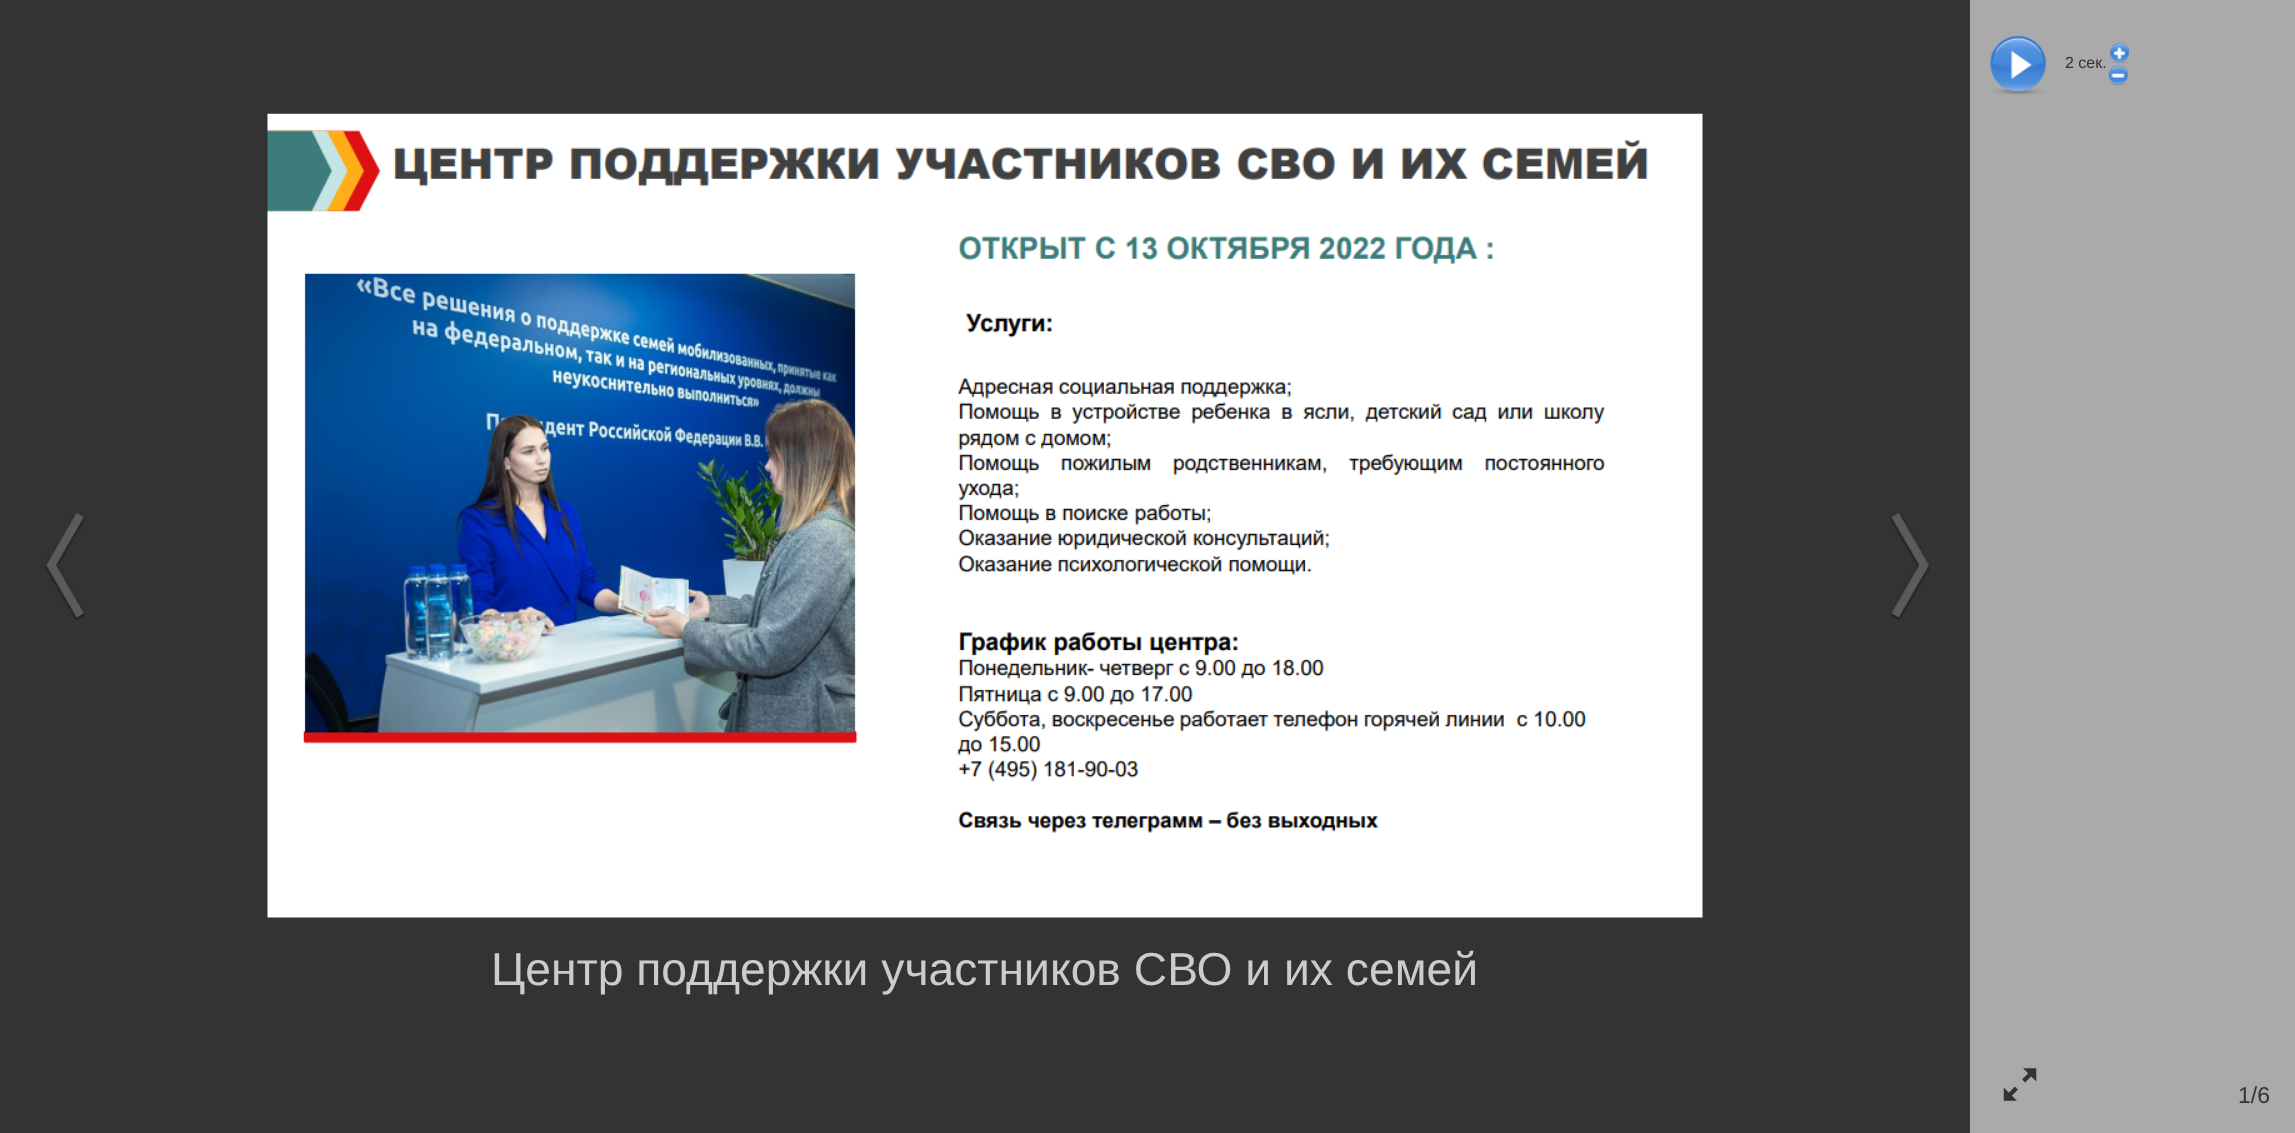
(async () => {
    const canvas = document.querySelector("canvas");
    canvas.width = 2295;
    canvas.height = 1133;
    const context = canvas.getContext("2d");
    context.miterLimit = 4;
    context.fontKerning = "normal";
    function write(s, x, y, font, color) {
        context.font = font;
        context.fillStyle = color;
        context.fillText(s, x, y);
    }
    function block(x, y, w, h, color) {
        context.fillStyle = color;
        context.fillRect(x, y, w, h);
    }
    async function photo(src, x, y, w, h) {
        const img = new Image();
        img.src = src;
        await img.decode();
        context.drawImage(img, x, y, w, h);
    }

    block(0, 0, 2295, 1133, "rgb(51, 51, 51)");
    await photo("media/1.png", 45, 512, 40, 108);
    await photo("media/2.png", 267, 113, 1436, 805);
    await photo("media/3.png", 1890, 512, 40, 108);
    write("Центр поддержки участников СВО и их семей", 491, 985, "46.25px Liberation Sans", "rgb(204, 204, 204)");
    block(1970, 0, 325, 1133, "rgb(170, 170, 170)");
    await photo("media/4.png", 1989, 36, 58, 59);
    write("2 сек.", 2065, 68, "16px Liberation Sans", "rgb(51, 51, 51)");
    await photo("media/5.png", 2109, 42, 20, 21);
    await photo("media/6.png", 2108, 65, 21, 20);
    await photo("media/7.png", 2003, 1068, 34, 33);
    write("1/6", 2238, 1103, "23px Liberation Sans", "rgb(51, 51, 51)");
})();
